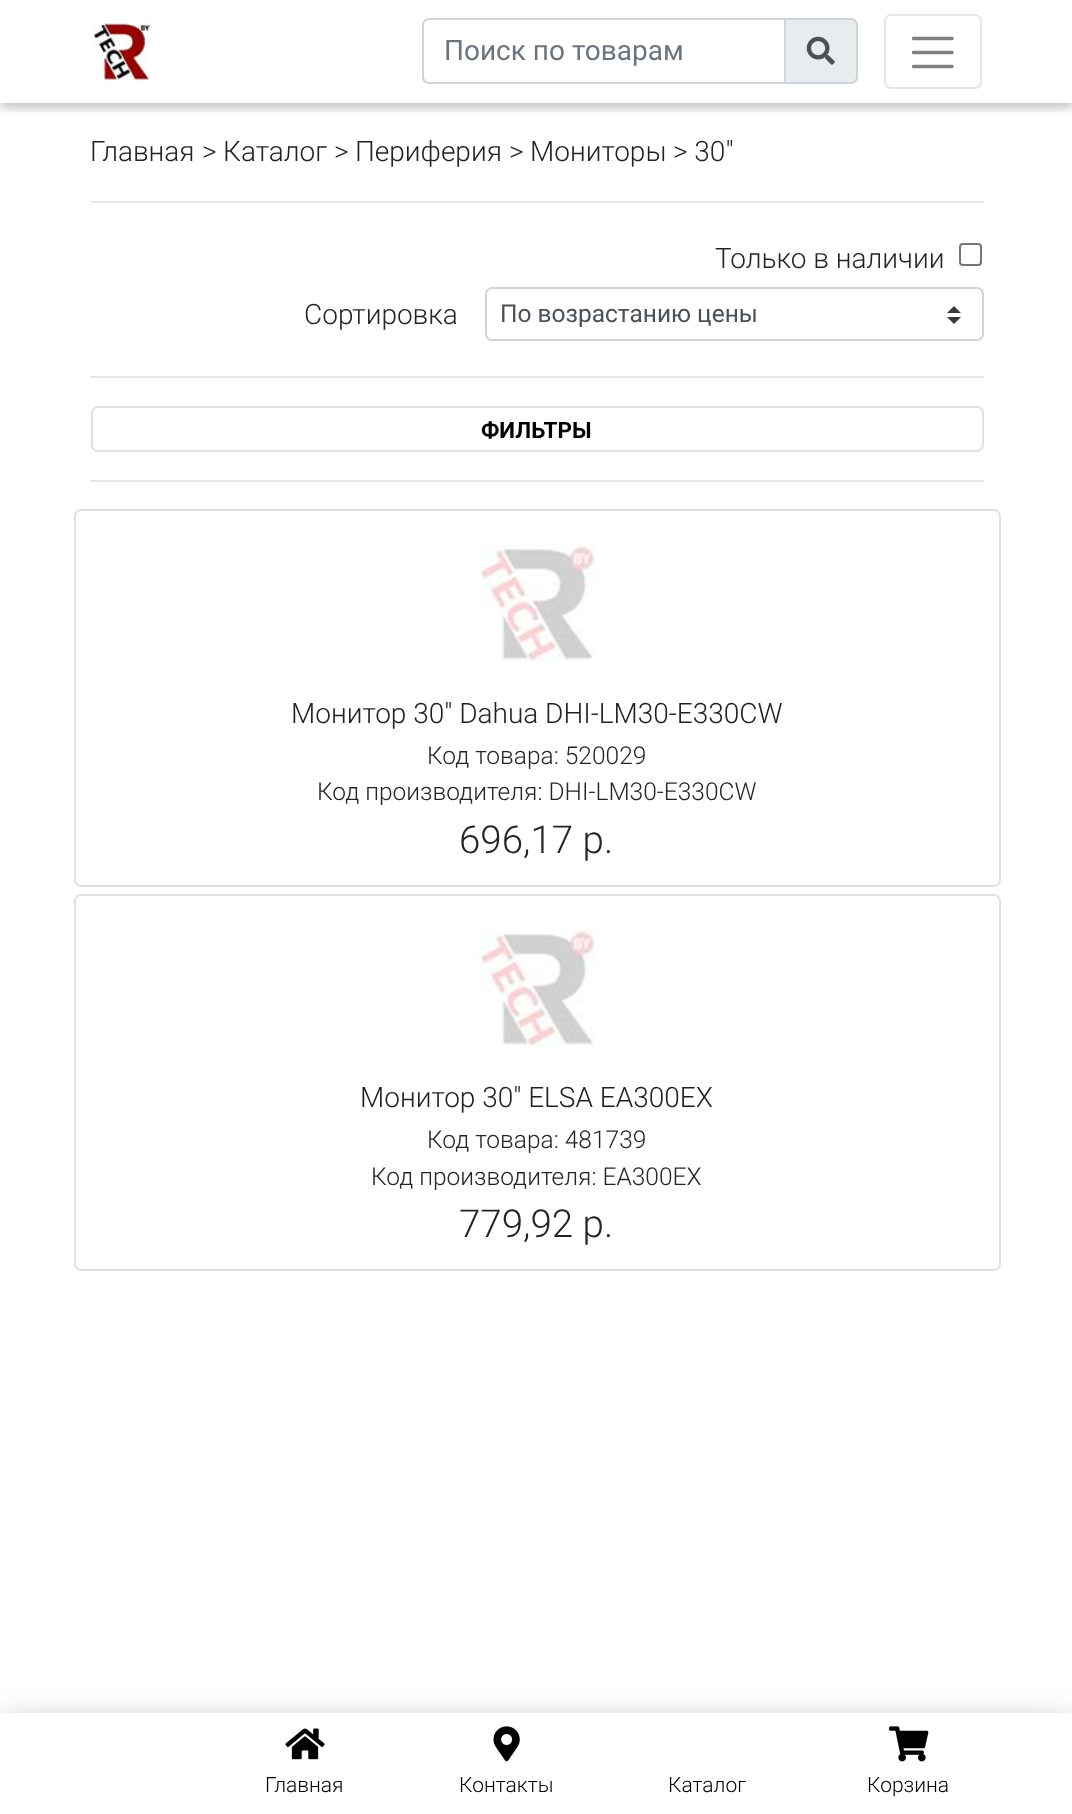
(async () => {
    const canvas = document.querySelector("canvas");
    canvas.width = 1072;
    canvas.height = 1814;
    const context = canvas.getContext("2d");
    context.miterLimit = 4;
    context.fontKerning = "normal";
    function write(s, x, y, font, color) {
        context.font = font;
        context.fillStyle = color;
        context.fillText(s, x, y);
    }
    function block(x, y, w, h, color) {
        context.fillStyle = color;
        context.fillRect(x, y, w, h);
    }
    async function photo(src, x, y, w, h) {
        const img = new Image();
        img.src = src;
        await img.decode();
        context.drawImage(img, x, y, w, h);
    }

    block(0, 0, 1072, 1814, "rgb(255, 255, 255)");
    context.save();
    context.beginPath();
    context.rect(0, 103, 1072, 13);
    context.clip();
    context.fillStyle = "rgba(0, 0, 0, 0.12)";
    context.filter = "blur(9px)";
    context.beginPath();
    context.rect(0, 4, 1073, 103);
    context.fill();
    context.filter = "none";
    context.restore();
    context.save();
    context.beginPath();
    context.rect(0, 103, 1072, 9);
    context.clip();
    context.fillStyle = "rgba(0, 0, 0, 0.16)";
    context.filter = "blur(4.5px)";
    context.beginPath();
    context.rect(0, 4, 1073, 103);
    context.fill();
    context.filter = "none";
    context.restore();
    await photo("media/1.png", 93, 22, 58, 59);
    context.fillStyle = "rgb(233, 236, 239)";
    context.beginPath();
    context.roundRect(785, 19, 72, 64, [0, 6, 6, 0]);
    context.fill();
    context.strokeStyle = "rgb(206, 212, 218)";
    context.lineWidth = 2;
    context.stroke();
    context.beginPath();
    context.roundRect(423, 19, 362, 64, [6, 0, 0, 6]);
    context.stroke();
    write("Поиск по товарам", 444, 60, "28px Roboto", "rgb(108, 117, 125)");
    await photo("media/2.png", 806, 36, 29, 29);
    context.beginPath();
    context.roundRect(885, 15, 96, 73, 6);
    context.strokeStyle = "rgb(230, 230, 230)";
    context.stroke();
    context.beginPath();
    context.moveTo(913.5, 38.5);
    context.lineTo(952, 38.5);
    context.moveTo(913.5, 52.5);
    context.lineTo(952, 52.5);
    context.moveTo(913.5, 66.5);
    context.lineTo(952, 66.5);
    context.strokeStyle = "rgb(128, 128, 128)";
    context.lineWidth = 3.5;
    context.lineCap = "round";
    context.stroke();
    write("Главная", 90, 161, "300 28px Roboto", "rgb(33, 33, 33)");
    write(">", 202, 161, "300 28px Roboto", "rgb(33, 37, 41)");
    write("Каталог", 223, 161, "300 28px Roboto", "rgb(33, 33, 33)");
    write(">", 334, 161, "300 28px Roboto", "rgb(33, 37, 41)");
    write("Периферия", 355, 161, "300 28px Roboto", "rgb(33, 33, 33)");
    write(">", 509, 161, "300 28px Roboto", "rgb(33, 37, 41)");
    write("Мониторы", 530, 161, "300 28px Roboto", "rgb(33, 33, 33)");
    write("> 30\"", 673, 161, "300 28px Roboto", "rgb(33, 37, 41)");
    block(91, 201, 893, 2, "rgb(230, 230, 230)");
    write("Только в наличии", 715, 268, "300 28px Roboto", "rgb(33, 37, 41)");
    context.beginPath();
    context.roundRect(960, 244, 21, 21, 3);
    context.strokeStyle = "rgb(118, 118, 118)";
    context.lineWidth = 2;
    context.stroke();
    write("Сортировка", 304, 324, "300 28px Roboto", "rgb(33, 37, 41)");
    context.fillStyle = "rgb(52, 58, 64)";
    context.beginPath();
    context.moveTo(954, 306);
    context.lineTo(947, 313);
    context.lineTo(961, 313);
    context.closePath();
    context.moveTo(954, 324);
    context.lineTo(947, 317);
    context.lineTo(961, 317);
    context.closePath();
    context.fill();
    context.beginPath();
    context.roundRect(486, 288, 497, 52, 6);
    context.strokeStyle = "rgb(206, 212, 218)";
    context.stroke();
    write("По возрастанию цены", 500, 322, "24.5px Roboto", "rgb(73, 80, 87)");
    block(91, 376, 893, 2, "rgb(230, 230, 230)");
    context.beginPath();
    context.roundRect(92, 407, 891, 44, 6);
    context.strokeStyle = "rgb(222, 226, 230)";
    context.stroke();
    write("ФИЛЬТРЫ", 481, 438, "bold 22.5px Roboto", "rgb(0, 0, 0)");
    block(91, 480, 893, 2, "rgb(230, 230, 230)");
    context.beginPath();
    context.roundRect(75, 510, 925, 376, 6);
    context.stroke();
    await photo("media/3.png", 478, 544, 118, 119);
    write("Монитор 30\" Dahua DHI-LM30-E330CW", 291, 723, "300 28px Roboto", "rgb(33, 33, 33)");
    write("Код товара: 520029", 427, 764, "300 24.5px Roboto", "rgb(33, 37, 41)");
    write("Код производителя: DHI-LM30-E330CW", 317, 800, "300 24.5px Roboto", "rgb(33, 37, 41)");
    write("696,17 р.", 459, 853, "300 38.5px Roboto", "rgb(33, 37, 41)");
    context.beginPath();
    context.roundRect(75, 895, 925, 375, 6);
    context.stroke();
    await photo("media/3.png", 478, 929, 118, 119);
    write("Монитор 30\" ELSA EA300EX", 360, 1107, "300 28px Roboto", "rgb(33, 33, 33)");
    write("Код товара: 481739", 427, 1148, "300 24.5px Roboto", "rgb(33, 37, 41)");
    write("Код производителя: EA300EX", 371, 1185, "300 24.5px Roboto", "rgb(33, 37, 41)");
    write("779,92 р.", 459, 1237, "300 38.5px Roboto", "rgb(33, 37, 41)");
    context.fillStyle = "rgba(0, 0, 0, 0.19)";
    context.filter = "blur(17.5px)";
    context.beginPath();
    context.rect(0, 1724, 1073, 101);
    context.fill();
    context.filter = "none";
    context.fillStyle = "rgba(0, 0, 0, 0.2)";
    context.filter = "blur(15px)";
    context.beginPath();
    context.rect(0, 1727, 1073, 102);
    context.fill();
    context.filter = "none";
    block(0, 1713, 1072, 101, "rgb(255, 255, 255)");
    await photo("media/4.png", 285, 1728, 40, 32);
    write("Главная", 265, 1792, "300 21px Roboto", "rgb(0, 0, 0)");
    await photo("media/5.png", 493, 1726, 27, 36);
    write("Контакты", 459, 1792, "300 21px Roboto", "rgb(0, 0, 0)");
    write("Каталог", 668, 1792, "300 21px Roboto", "rgb(0, 0, 0)");
    await photo("media/6.png", 889, 1726, 40, 36);
    write("Корзина", 867, 1792, "300 21px Roboto", "rgb(0, 0, 0)");
})();
